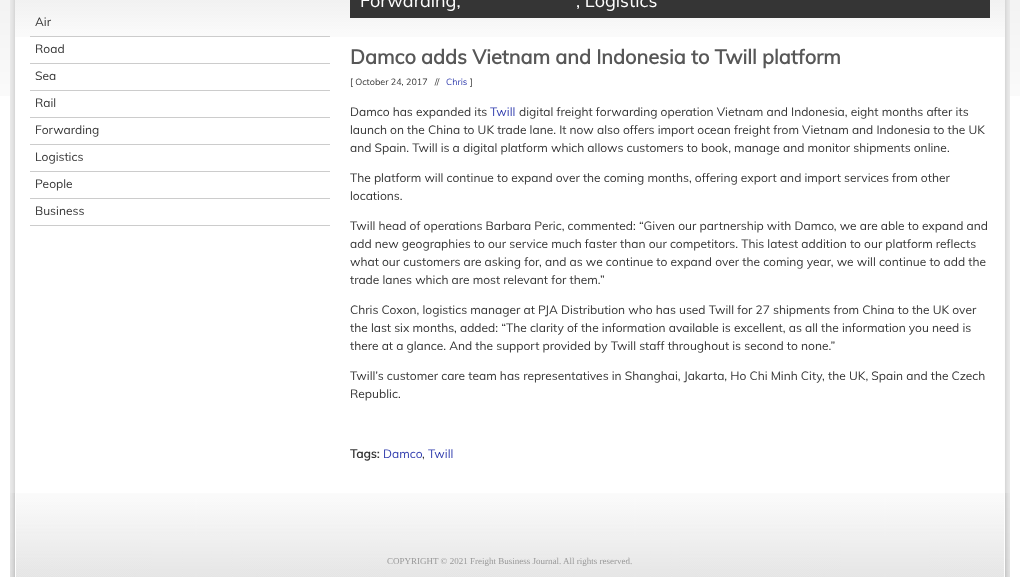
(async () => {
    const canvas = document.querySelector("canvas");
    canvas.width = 1020;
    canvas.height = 577;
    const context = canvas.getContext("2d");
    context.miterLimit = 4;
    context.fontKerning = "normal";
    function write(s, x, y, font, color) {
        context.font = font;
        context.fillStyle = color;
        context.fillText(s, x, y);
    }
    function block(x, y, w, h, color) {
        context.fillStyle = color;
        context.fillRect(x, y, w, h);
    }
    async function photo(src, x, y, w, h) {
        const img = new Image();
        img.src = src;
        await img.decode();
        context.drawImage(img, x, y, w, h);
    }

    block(0, 0, 1020, 577, "rgb(255, 255, 255)");
    await photo("media/1.png", 0, 0, 1020, 96);
    await photo("media/2.png", 10, 0, 1000, 493);
    await photo("media/3.png", 15, 0, 990, 37);
    block(30, 36, 300, 1, "rgb(204, 204, 204)");
    write("Air", 35, 26, "12px Muli", "rgb(53, 53, 53)");
    block(30, 63, 300, 1, "rgb(204, 204, 204)");
    write("Road", 35, 53, "12px Muli", "rgb(53, 53, 53)");
    block(30, 90, 300, 1, "rgb(204, 204, 204)");
    write("Sea", 35, 80, "12px Muli", "rgb(53, 53, 53)");
    block(30, 117, 300, 1, "rgb(204, 204, 204)");
    write("Rail", 35, 107, "12px Muli", "rgb(53, 53, 53)");
    block(30, 144, 300, 1, "rgb(204, 204, 204)");
    write("Forwarding", 35, 134, "12px Muli", "rgb(53, 53, 53)");
    block(30, 171, 300, 1, "rgb(204, 204, 204)");
    write("Logistics", 35, 161, "12px Muli", "rgb(53, 53, 53)");
    block(30, 198, 300, 1, "rgb(204, 204, 204)");
    write("People", 35, 188, "12px Muli", "rgb(53, 53, 53)");
    block(30, 225, 300, 1, "rgb(204, 204, 204)");
    write("Business", 35, 215, "12px Muli", "rgb(53, 53, 53)");
    block(350, 0, 640, 18, "rgb(53, 53, 53)");
    write("Forwarding,", 360, 7, "18px Muli", "rgb(255, 255, 255)");
    write(", Logistics", 576, 7, "18px Muli", "rgb(255, 255, 255)");
    write("Damco adds Vietnam and Indonesia to Twill platform", 350, 64, "bold 20px Muli", "rgb(87, 87, 87)");
    write("[ October 24, 2017   //", 350, 85, "9px Muli", "rgb(53, 53, 53)");
    write("Chris", 446, 85, "9px Muli", "rgb(50, 62, 174)");
    write("]", 470, 85, "9px Muli", "rgb(53, 53, 53)");
    write("Damco has expanded its", 350, 116, "12px Muli", "rgb(53, 53, 53)");
    write("Twill", 490, 116, "12px Muli", "rgb(50, 62, 174)");
    write("digital freight forwarding operation Vietnam and Indonesia, eight months after its", 519, 116, "12px Muli", "rgb(53, 53, 53)");
    write("launch on the China to UK trade lane. It now also offers import ocean freight from Vietnam and Indonesia to the UK", 350, 134, "12px Muli", "rgb(53, 53, 53)");
    write("and Spain. Twill is a digital platform which allows customers to book, manage and monitor shipments online.", 350, 152, "12px Muli", "rgb(53, 53, 53)");
    write("The platform will continue to expand over the coming months, offering export and import services from other", 350, 182, "12px Muli", "rgb(53, 53, 53)");
    write("locations.", 350, 200, "12px Muli", "rgb(53, 53, 53)");
    write("Twill head of operations Barbara Peric, commented: “Given our partnership with Damco, we are able to expand and", 350, 230, "12px Muli", "rgb(53, 53, 53)");
    write("add new geographies to our service much faster than our competitors. This latest addition to our platform reflects", 350, 248, "12px Muli", "rgb(53, 53, 53)");
    write("what our customers are asking for, and as we continue to expand over the coming year, we will continue to add the", 350, 266, "12px Muli", "rgb(53, 53, 53)");
    write("trade lanes which are most relevant for them.”", 350, 284, "12px Muli", "rgb(53, 53, 53)");
    write("Chris Coxon, logistics manager at PJA Distribution who has used Twill for 27 shipments from China to the UK over", 350, 314, "12px Muli", "rgb(53, 53, 53)");
    write("the last six months, added: “The clarity of the information available is excellent, as all the information you need is", 350, 332, "12px Muli", "rgb(53, 53, 53)");
    write("there at a glance. And the support provided by Twill staff throughout is second to none.”", 350, 350, "12px Muli", "rgb(53, 53, 53)");
    write("Twill’s customer care team has representatives in Shanghai, Jakarta, Ho Chi Minh City, the UK, Spain and the Czech", 350, 380, "12px Muli", "rgb(53, 53, 53)");
    write("Republic.", 350, 398, "12px Muli", "rgb(53, 53, 53)");
    write("Tags:", 350, 458, "bold 12px Muli", "rgb(53, 53, 53)");
    write("Damco", 383, 458, "12px Muli", "rgb(50, 62, 174)");
    write(",", 422, 458, "12px Muli", "rgb(53, 53, 53)");
    write("Twill", 428, 458, "12px Muli", "rgb(50, 62, 174)");
    await photo("media/4.png", 10, 493, 1000, 84);
    write("COPYRIGHT © 2021 Freight Business Journal. All rights reserved.", 387, 564, "9px Liberation Serif", "rgb(153, 153, 153)");
})();
